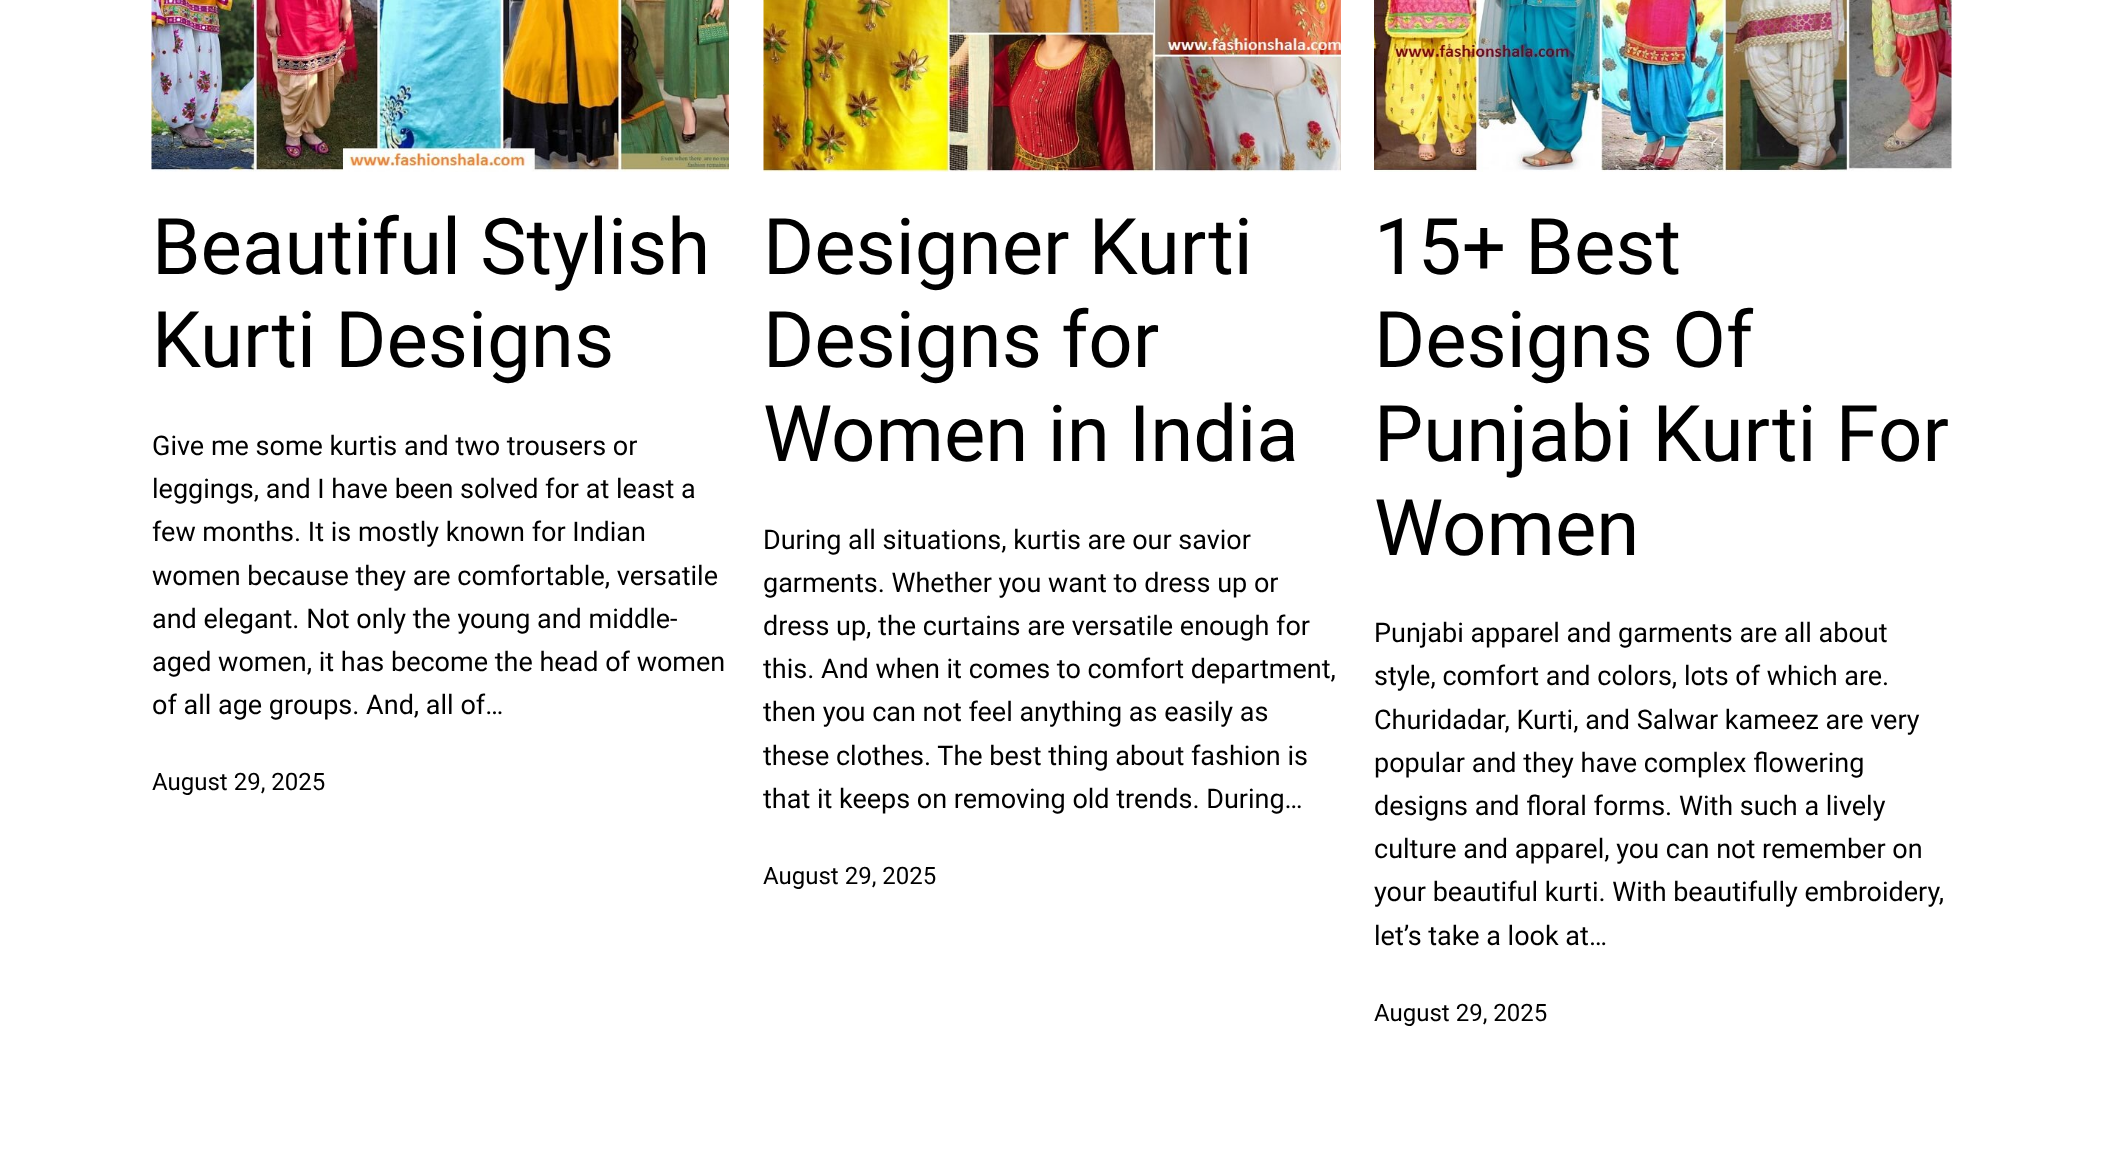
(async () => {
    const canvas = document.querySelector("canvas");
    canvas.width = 2102;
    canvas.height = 1160;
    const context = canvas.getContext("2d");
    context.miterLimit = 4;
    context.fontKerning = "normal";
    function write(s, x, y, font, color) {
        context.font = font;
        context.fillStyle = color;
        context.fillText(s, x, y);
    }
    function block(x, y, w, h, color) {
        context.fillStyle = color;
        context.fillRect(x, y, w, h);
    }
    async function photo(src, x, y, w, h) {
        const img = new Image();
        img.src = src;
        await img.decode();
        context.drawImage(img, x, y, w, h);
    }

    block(0, 0, 2102, 1160, "rgb(255, 255, 255)");
    await photo("media/1.png", 151, 0, 578, 172);
    write("Beautiful Stylish", 152, 274, "78px Roboto", "rgb(0, 0, 0)");
    write("Kurti Designs", 152, 367, "78px Roboto", "rgb(0, 0, 0)");
    write("Give me some kurtis and two trousers or", 152, 455, "27px Roboto", "rgb(0, 0, 0)");
    write("leggings, and I have been solved for at least a", 152, 498, "27px Roboto", "rgb(0, 0, 0)");
    write("few months. It is mostly known for Indian", 152, 541, "27px Roboto", "rgb(0, 0, 0)");
    write("women because they are comfortable, versatile", 152, 585, "27px Roboto", "rgb(0, 0, 0)");
    write("and elegant. Not only the young and middle-", 152, 628, "27px Roboto", "rgb(0, 0, 0)");
    write("aged women, it has become the head of women", 152, 671, "27px Roboto", "rgb(0, 0, 0)");
    write("of all age groups. And, all of…", 152, 714, "27px Roboto", "rgb(0, 0, 0)");
    write("August 29, 2025", 152, 790, "24px Roboto", "rgb(0, 0, 0)");
    await photo("media/2.png", 763, 0, 578, 172);
    write("Designer Kurti", 763, 274, "78px Roboto", "rgb(0, 0, 0)");
    write("Designs for", 763, 367, "78px Roboto", "rgb(0, 0, 0)");
    write("Women in India", 763, 461, "78px Roboto", "rgb(0, 0, 0)");
    write("During all situations, kurtis are our savior", 763, 549, "27px Roboto", "rgb(0, 0, 0)");
    write("garments. Whether you want to dress up or", 763, 592, "27px Roboto", "rgb(0, 0, 0)");
    write("dress up, the curtains are versatile enough for", 763, 635, "27px Roboto", "rgb(0, 0, 0)");
    write("this. And when it comes to comfort department,", 763, 678, "27px Roboto", "rgb(0, 0, 0)");
    write("then you can not feel anything as easily as", 763, 721, "27px Roboto", "rgb(0, 0, 0)");
    write("these clothes. The best thing about fashion is", 763, 765, "27px Roboto", "rgb(0, 0, 0)");
    write("that it keeps on removing old trends. During…", 763, 808, "27px Roboto", "rgb(0, 0, 0)");
    write("August 29, 2025", 763, 884, "24px Roboto", "rgb(0, 0, 0)");
    await photo("media/3.png", 1374, 0, 578, 172);
    write("15+ Best", 1374, 274, "78px Roboto", "rgb(0, 0, 0)");
    write("Designs Of", 1374, 367, "78px Roboto", "rgb(0, 0, 0)");
    write("Punjabi Kurti For", 1374, 461, "78px Roboto", "rgb(0, 0, 0)");
    write("Women", 1374, 555, "78px Roboto", "rgb(0, 0, 0)");
    write("Punjabi apparel and garments are all about", 1374, 642, "27px Roboto", "rgb(0, 0, 0)");
    write("style, comfort and colors, lots of which are.", 1374, 685, "27px Roboto", "rgb(0, 0, 0)");
    write("Churidadar, Kurti, and Salwar kameez are very", 1374, 729, "27px Roboto", "rgb(0, 0, 0)");
    write("popular and they have complex flowering", 1374, 772, "27px Roboto", "rgb(0, 0, 0)");
    write("designs and floral forms. With such a lively", 1374, 815, "27px Roboto", "rgb(0, 0, 0)");
    write("culture and apparel, you can not remember on", 1374, 858, "27px Roboto", "rgb(0, 0, 0)");
    write("your beautiful kurti. With beautifully embroidery,", 1374, 901, "27px Roboto", "rgb(0, 0, 0)");
    write("let’s take a look at…", 1374, 945, "27px Roboto", "rgb(0, 0, 0)");
    write("August 29, 2025", 1374, 1021, "24px Roboto", "rgb(0, 0, 0)");
})();
